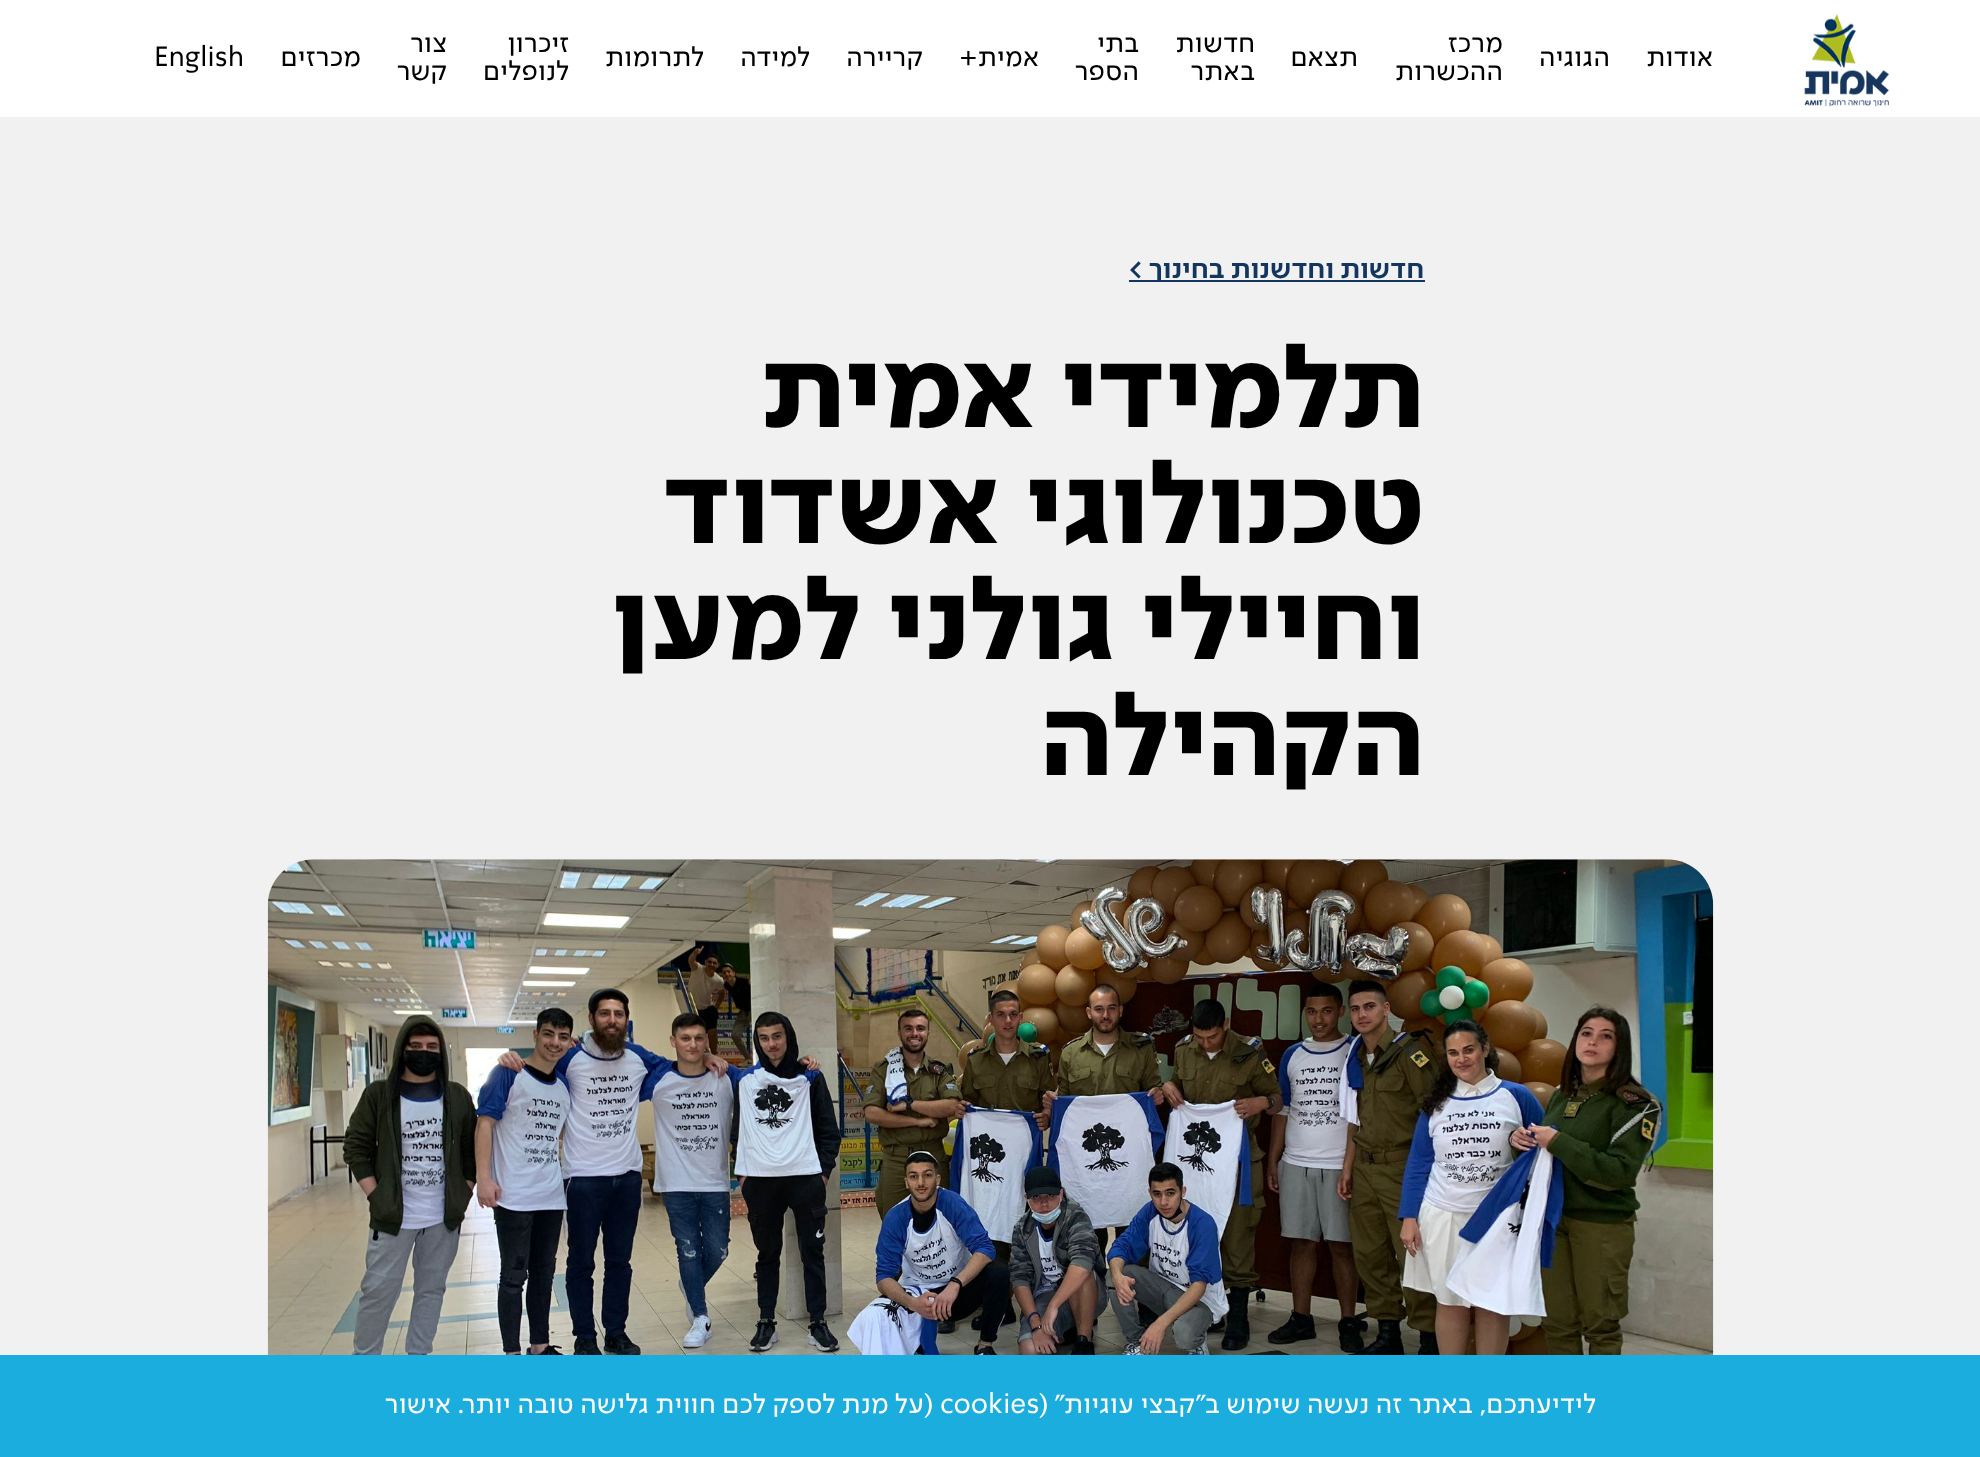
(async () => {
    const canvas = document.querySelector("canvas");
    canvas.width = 1980;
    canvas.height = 1457;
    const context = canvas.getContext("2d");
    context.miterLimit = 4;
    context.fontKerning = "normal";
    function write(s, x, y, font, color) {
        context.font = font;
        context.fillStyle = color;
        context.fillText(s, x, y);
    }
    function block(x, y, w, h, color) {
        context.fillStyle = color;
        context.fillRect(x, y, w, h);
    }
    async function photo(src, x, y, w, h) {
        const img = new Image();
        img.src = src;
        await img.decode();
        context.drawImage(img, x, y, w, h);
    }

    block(0, 0, 1980, 1457, "rgb(255, 255, 255)");
    await photo("media/1.png", 1804, 14, 85, 93);
    context.direction = "rtl";
    write("אודות", 1713, 66, "28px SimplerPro", "rgb(0, 0, 0)");
    write("הגוגיה", 1610, 66, "28px SimplerPro", "rgb(0, 0, 0)");
    write("מרכז", 1503, 52, "28px SimplerPro", "rgb(0, 0, 0)");
    write("ההכשרות", 1503, 80, "28px SimplerPro", "rgb(0, 0, 0)");
    write("תצאם", 1358, 66, "28px SimplerPro", "rgb(0, 0, 0)");
    write("חדשות", 1255, 52, "28px SimplerPro", "rgb(0, 0, 0)");
    write("באתר", 1255, 80, "28px SimplerPro", "rgb(0, 0, 0)");
    write("בתי", 1139, 52, "28px SimplerPro", "rgb(0, 0, 0)");
    write("הספר", 1139, 80, "28px SimplerPro", "rgb(0, 0, 0)");
    write("אמית+", 1039, 66, "28px SimplerPro", "rgb(0, 0, 0)");
    write("קריירה", 923, 66, "28px SimplerPro", "rgb(0, 0, 0)");
    write("למידה", 810, 66, "28px SimplerPro", "rgb(0, 0, 0)");
    write("לתרומות", 704, 66, "28px SimplerPro", "rgb(0, 0, 0)");
    write("זיכרון", 569, 52, "28px SimplerPro", "rgb(0, 0, 0)");
    write("לנופלים", 569, 80, "28px SimplerPro", "rgb(0, 0, 0)");
    write("צור", 447, 52, "28px SimplerPro", "rgb(0, 0, 0)");
    write("קשר", 447, 80, "28px SimplerPro", "rgb(0, 0, 0)");
    write("מכרזים", 361, 66, "28px SimplerPro", "rgb(0, 0, 0)");
    context.direction = "ltr";
    write("English", 154, 66, "28px SimplerPro", "rgb(0, 0, 0)");
    block(0, 117, 1980, 1238, "rgb(241, 241, 241)");
    block(1129, 280, 296, 2, "rgb(20, 54, 94)");
    context.direction = "rtl";
    write("חדשות וחדשנות בחינוך >", 1424, 278, "bold 28px SimplerPro", "rgb(20, 54, 94)");
    write("תלמידי אמית", 1424, 427, "900 115px SimplerPro", "rgb(0, 0, 0)");
    write("טכנולוגי אשדוד", 1424, 543, "900 115px SimplerPro", "rgb(0, 0, 0)");
    write("וחיילי גולני למען", 1424, 659, "900 115px SimplerPro", "rgb(0, 0, 0)");
    write("הקהילה", 1424, 775, "900 115px SimplerPro", "rgb(0, 0, 0)");
    await photo("media/2.png", 267, 859, 1447, 496);
    block(0, 1355, 1980, 102, "rgb(28, 173, 223)");
    write("לידיעתכם, באתר זה נעשה שימוש ב\"קבצי עוגיות\" (", 1596, 1413, "28px SimplerPro", "rgb(255, 255, 255)");
    context.direction = "ltr";
    write(") cookies", 924, 1413, "28px SimplerPro", "rgb(255, 255, 255)");
    context.direction = "rtl";
    write("על מנת לספק לכם חווית גלישה טובה יותר.", 924, 1413, "28px SimplerPro", "rgb(255, 255, 255)");
    write("אישור", 451, 1413, "28px SimplerPro", "rgb(255, 255, 255)");
})();
